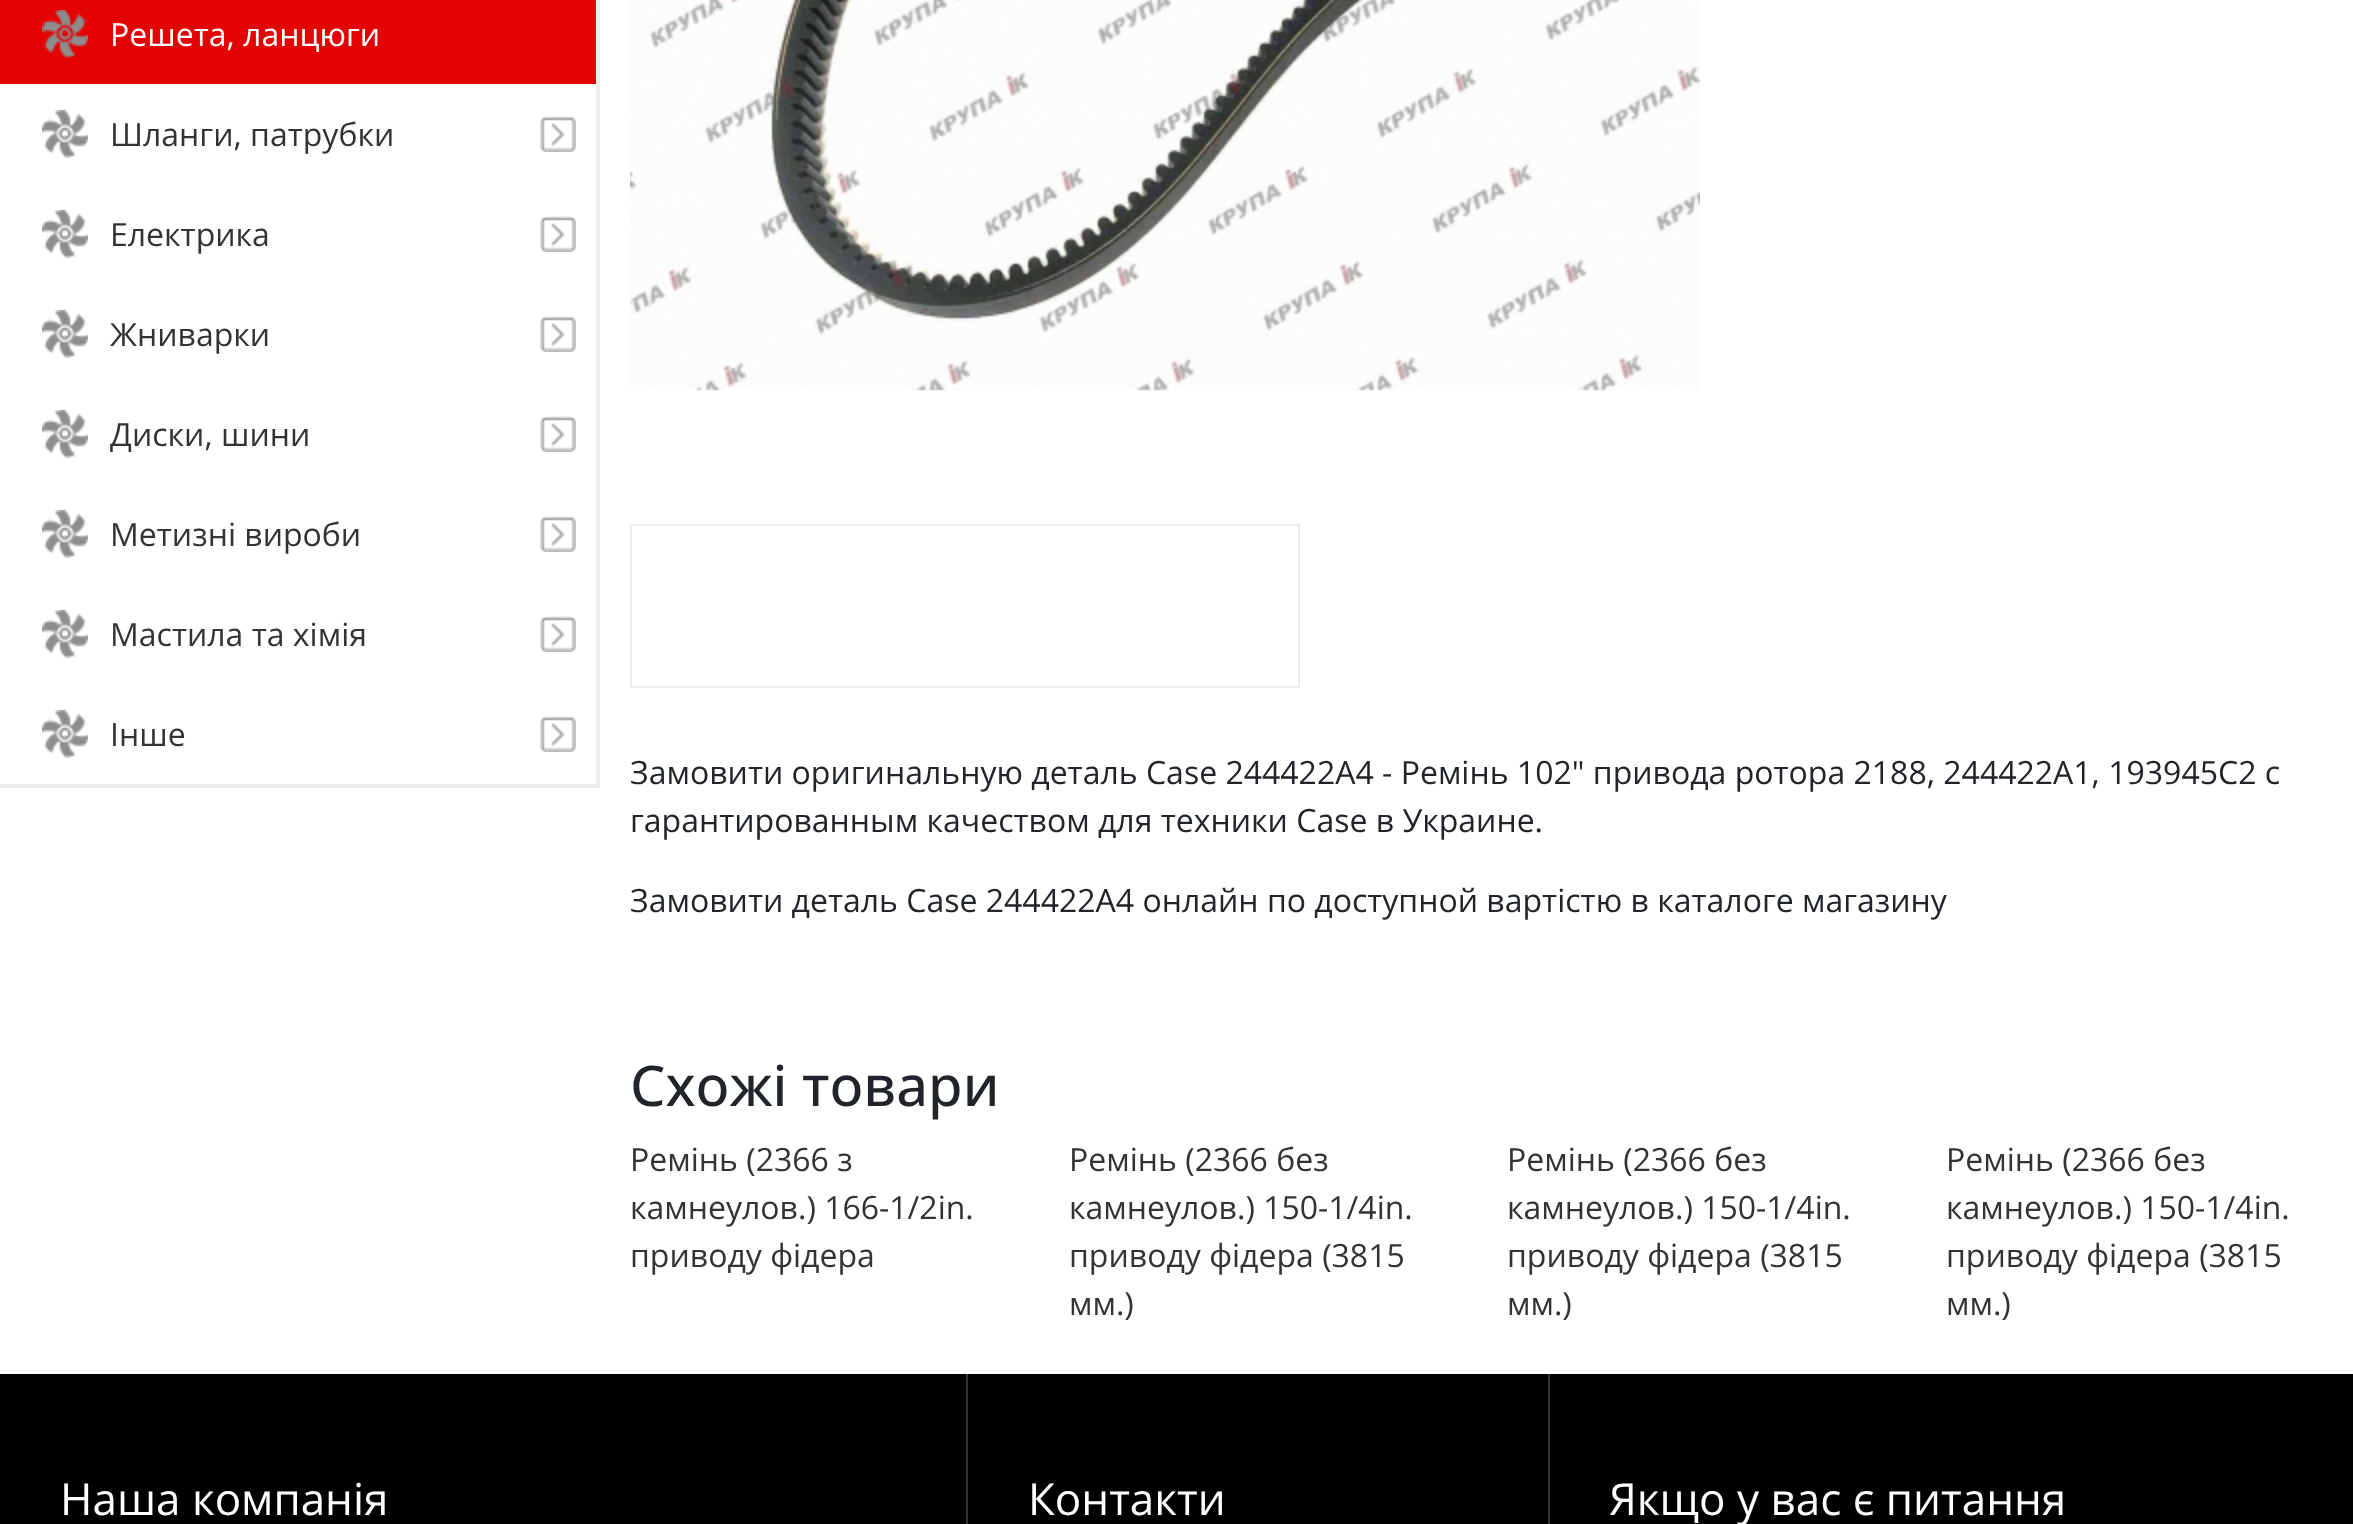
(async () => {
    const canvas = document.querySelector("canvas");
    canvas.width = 2353;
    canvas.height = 1524;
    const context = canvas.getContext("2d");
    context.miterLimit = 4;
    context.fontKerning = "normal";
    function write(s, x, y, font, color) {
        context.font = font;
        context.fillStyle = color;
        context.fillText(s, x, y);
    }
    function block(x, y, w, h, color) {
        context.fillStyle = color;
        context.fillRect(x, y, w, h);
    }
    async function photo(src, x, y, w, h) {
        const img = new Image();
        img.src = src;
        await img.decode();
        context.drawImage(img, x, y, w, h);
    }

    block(0, 0, 2353, 1524, "rgb(255, 255, 255)");
    context.fillStyle = "rgb(234, 236, 237)";
    context.beginPath();
    context.moveTo(600, -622);
    context.lineTo(600, 788);
    context.lineTo(596, 784);
    context.lineTo(596, -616);
    context.closePath();
    context.fill();
    block(0, 784, 600, 4, "rgb(234, 236, 237)");
    block(0, 0, 596, 84, "rgb(228, 3, 3)");
    await photo("media/1.png", 42, 10, 46, 48);
    write("Решета, ланцюги", 110, 46, "32px Open Sans", "rgb(255, 255, 255)");
    await photo("media/2.png", 540, 116, 36, 36);
    await photo("media/3.png", 42, 110, 46, 48);
    write("Шланги, патрубки", 110, 146, "32px Open Sans", "rgb(51, 51, 51)");
    await photo("media/2.png", 540, 216, 36, 36);
    await photo("media/3.png", 42, 210, 46, 48);
    write("Електрика", 110, 246, "32px Open Sans", "rgb(51, 51, 51)");
    await photo("media/2.png", 540, 316, 36, 36);
    await photo("media/3.png", 42, 310, 46, 48);
    write("Жниварки", 110, 346, "32px Open Sans", "rgb(51, 51, 51)");
    await photo("media/2.png", 540, 416, 36, 36);
    await photo("media/3.png", 42, 410, 46, 48);
    write("Диски, шини", 110, 446, "32px Open Sans", "rgb(51, 51, 51)");
    await photo("media/2.png", 540, 516, 36, 36);
    await photo("media/3.png", 42, 510, 46, 48);
    write("Метизні вироби", 110, 546, "32px Open Sans", "rgb(51, 51, 51)");
    await photo("media/2.png", 540, 616, 36, 36);
    await photo("media/3.png", 42, 610, 46, 48);
    write("Мастила та хімія", 110, 646, "32px Open Sans", "rgb(51, 51, 51)");
    await photo("media/2.png", 540, 716, 36, 36);
    await photo("media/3.png", 42, 710, 46, 48);
    write("Інше", 110, 746, "32px Open Sans", "rgb(51, 51, 51)");
    await photo("media/4.png", 630, 0, 1070, 391);
    context.strokeStyle = "rgb(234, 236, 237)";
    context.lineWidth = 2;
    context.strokeRect(631, 525, 668, 162);
    write("Замовити оригинальную деталь Case 244422A4 - Ремінь 102\" привода ротора 2188, 244422A1, 193945C2 с", 630, 784, "32px Open Sans", "rgb(33, 37, 41)");
    write("гарантированным качеством для техники Case в Украине.", 630, 832, "32px Open Sans", "rgb(33, 37, 41)");
    write("Замовити деталь Case 244422A4 онлайн по доступной вартістю в каталоге магазину", 630, 912, "32px Open Sans", "rgb(33, 37, 41)");
    write("Схожі товари", 630, 1106, "500 56px Open Sans", "rgb(33, 37, 41)");
    write("Ремінь (2366 з", 630, 1171, "32px Open Sans", "rgb(51, 51, 51)");
    write("камнеулов.) 166-1/2in.", 630, 1219, "32px Open Sans", "rgb(51, 51, 51)");
    write("приводу фідера", 630, 1267, "32px Open Sans", "rgb(51, 51, 51)");
    write("Ремінь (2366 без", 1069, 1171, "32px Open Sans", "rgb(51, 51, 51)");
    write("камнеулов.) 150-1/4in.", 1069, 1219, "32px Open Sans", "rgb(51, 51, 51)");
    write("приводу фідера (3815", 1069, 1267, "32px Open Sans", "rgb(51, 51, 51)");
    write("мм.)", 1069, 1315, "32px Open Sans", "rgb(51, 51, 51)");
    write("Ремінь (2366 без", 1507, 1171, "32px Open Sans", "rgb(51, 51, 51)");
    write("камнеулов.) 150-1/4in.", 1507, 1219, "32px Open Sans", "rgb(51, 51, 51)");
    write("приводу фідера (3815", 1507, 1267, "32px Open Sans", "rgb(51, 51, 51)");
    write("мм.)", 1507, 1315, "32px Open Sans", "rgb(51, 51, 51)");
    write("Ремінь (2366 без", 1946, 1171, "32px Open Sans", "rgb(51, 51, 51)");
    write("камнеулов.) 150-1/4in.", 1946, 1219, "32px Open Sans", "rgb(51, 51, 51)");
    write("приводу фідера (3815", 1946, 1267, "32px Open Sans", "rgb(51, 51, 51)");
    write("мм.)", 1946, 1315, "32px Open Sans", "rgb(51, 51, 51)");
    block(0, 1374, 2353, 150, "rgb(0, 0, 0)");
    block(966, 1374, 2, 150, "rgb(51, 51, 51)");
    write("Наша компанія", 60, 1515, "44px Open Sans", "rgb(255, 255, 255)");
    block(1548, 1374, 2, 150, "rgb(51, 51, 51)");
    write("Контакти", 1028, 1515, "44px Open Sans", "rgb(255, 255, 255)");
    write("Якщо у вас є питання", 1609, 1515, "44px Open Sans", "rgb(255, 255, 255)");
})();
